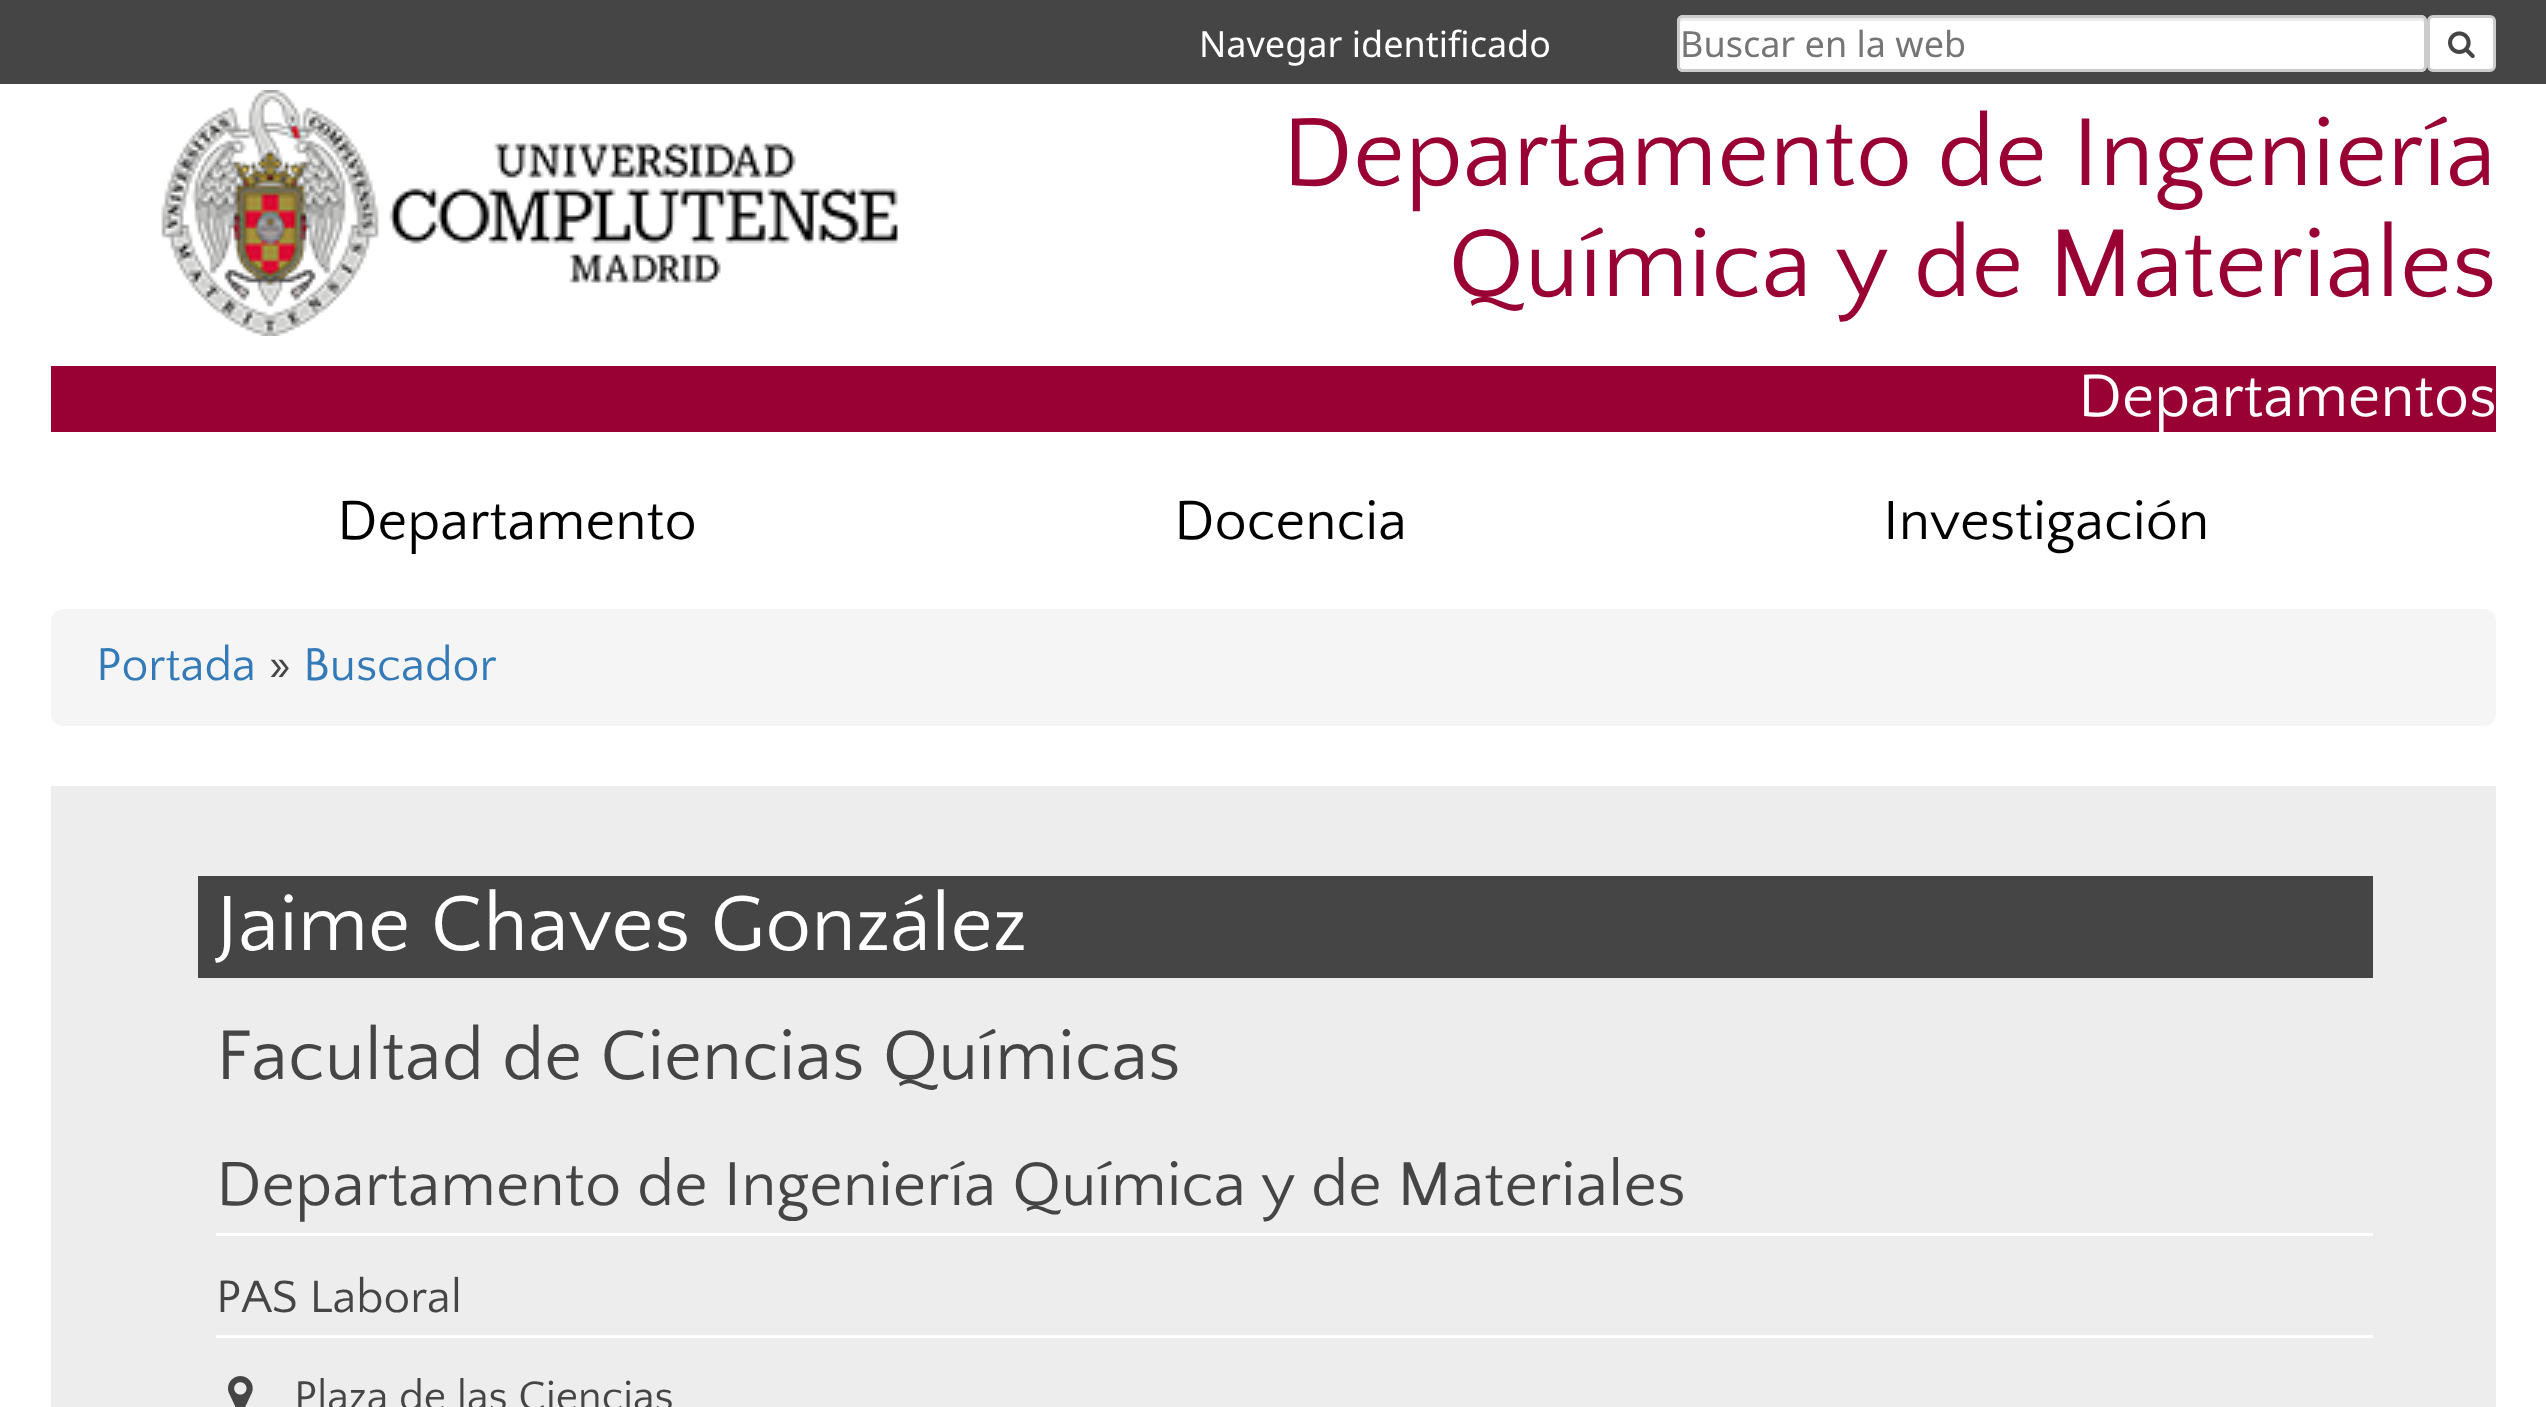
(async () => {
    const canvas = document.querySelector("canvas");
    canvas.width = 2546;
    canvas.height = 1407;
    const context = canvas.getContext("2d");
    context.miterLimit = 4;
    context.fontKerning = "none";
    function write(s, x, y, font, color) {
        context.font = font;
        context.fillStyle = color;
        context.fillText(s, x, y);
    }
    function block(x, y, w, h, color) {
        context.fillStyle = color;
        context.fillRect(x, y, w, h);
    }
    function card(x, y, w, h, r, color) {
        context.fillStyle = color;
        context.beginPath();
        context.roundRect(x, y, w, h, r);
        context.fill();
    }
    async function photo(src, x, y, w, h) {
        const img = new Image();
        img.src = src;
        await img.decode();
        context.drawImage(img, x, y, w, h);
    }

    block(0, 0, 2546, 1407, "rgb(255, 255, 255)");
    block(0, 0, 2546, 84, "rgb(69, 69, 69)");
    write("Navegar identificado", 1199, 57, "36px Noto Sans", "rgb(255, 255, 255)");
    card(1677, 15, 750, 57, 6, "rgb(255, 255, 255)");
    context.fillStyle = "rgb(236, 236, 236)";
    context.beginPath();
    context.moveTo(1683, 21);
    context.lineTo(2421, 21);
    context.bezierCurveTo(2423, 21, 2424, 22, 2424, 24);
    context.lineTo(2424, 21);
    context.bezierCurveTo(2424, 19, 2423, 18, 2421, 18);
    context.lineTo(1683, 18);
    context.bezierCurveTo(1681, 18, 1680, 19, 1680, 21);
    context.lineTo(1680, 24);
    context.bezierCurveTo(1680, 22, 1681, 21, 1683, 21);
    context.closePath();
    context.fill();
    context.beginPath();
    context.roundRect(1678.5, 16.5, 747, 54, 4.5);
    context.strokeStyle = "rgb(204, 204, 204)";
    context.lineWidth = 3;
    context.stroke();
    write("Buscar en la web", 1680, 57, "36px Noto Sans", "rgb(117, 117, 117)");
    context.fillStyle = "rgb(255, 255, 255)";
    context.beginPath();
    context.roundRect(2428.5, 16.5, 66, 54, 4.5);
    context.fill();
    context.stroke();
    await photo("media/1.png", 2448, 31, 27, 28);
    await photo("media/2.png", 161, 90, 737, 246);
    write("Departamento de Ingeniería", 1282, 185, "100.75px Quattrocento Sans", "rgb(153, 0, 51)");
    write("Química y de Materiales", 1448, 296, "100.75px Quattrocento Sans", "rgb(153, 0, 51)");
    block(51, 366, 2445, 66, "rgb(153, 0, 51)");
    write("Departamentos", 2078, 416, "62.5px Quattrocento Sans", "rgb(255, 255, 255)");
    write("Departamento", 337, 539, "57.5px Quattrocento Sans", "rgb(0, 0, 0)");
    write("Docencia", 1174, 539, "57.5px Quattrocento Sans", "rgb(0, 0, 0)");
    write("Investigación", 1883, 539, "57.5px Quattrocento Sans", "rgb(0, 0, 0)");
    card(51, 609, 2445, 117, 12, "rgb(245, 245, 245)");
    write("Portada", 96, 680, "48px Quattrocento Sans", "rgb(51, 122, 183)");
    write("»", 268, 680, "48px Quattrocento Sans", "rgb(69, 69, 69)");
    write("Buscador", 303, 680, "48px Quattrocento Sans", "rgb(51, 122, 183)");
    block(51, 786, 2445, 621, "rgb(237, 237, 237)");
    block(198, 876, 2175, 102, "rgb(69, 69, 69)");
    write("Jaime Chaves González", 216, 950, "82px Quattrocento Sans", "rgb(255, 255, 255)");
    write("Facultad de Ciencias Químicas", 216, 1079, "73.5px Quattrocento Sans", "rgb(69, 69, 69)");
    block(216, 1233, 2157, 3, "rgb(255, 255, 255)");
    context.wordSpacing = "-0.25px";
    write("Departamento de Ingeniería Química y de Materiales", 216, 1205, "64.8px Quattrocento Sans", "rgb(69, 69, 69)");
    block(216, 1335, 2157, 3, "rgb(255, 255, 255)");
    context.wordSpacing = "0px";
    write("PAS Laboral", 216, 1312, "47.5px Quattrocento Sans", "rgb(69, 69, 69)");
    await photo("media/3.png", 228, 1376, 25, 31);
    write("Plaza de las Ciencias", 294, 1410, "43.25px Quattrocento Sans", "rgb(69, 69, 69)");
})();
